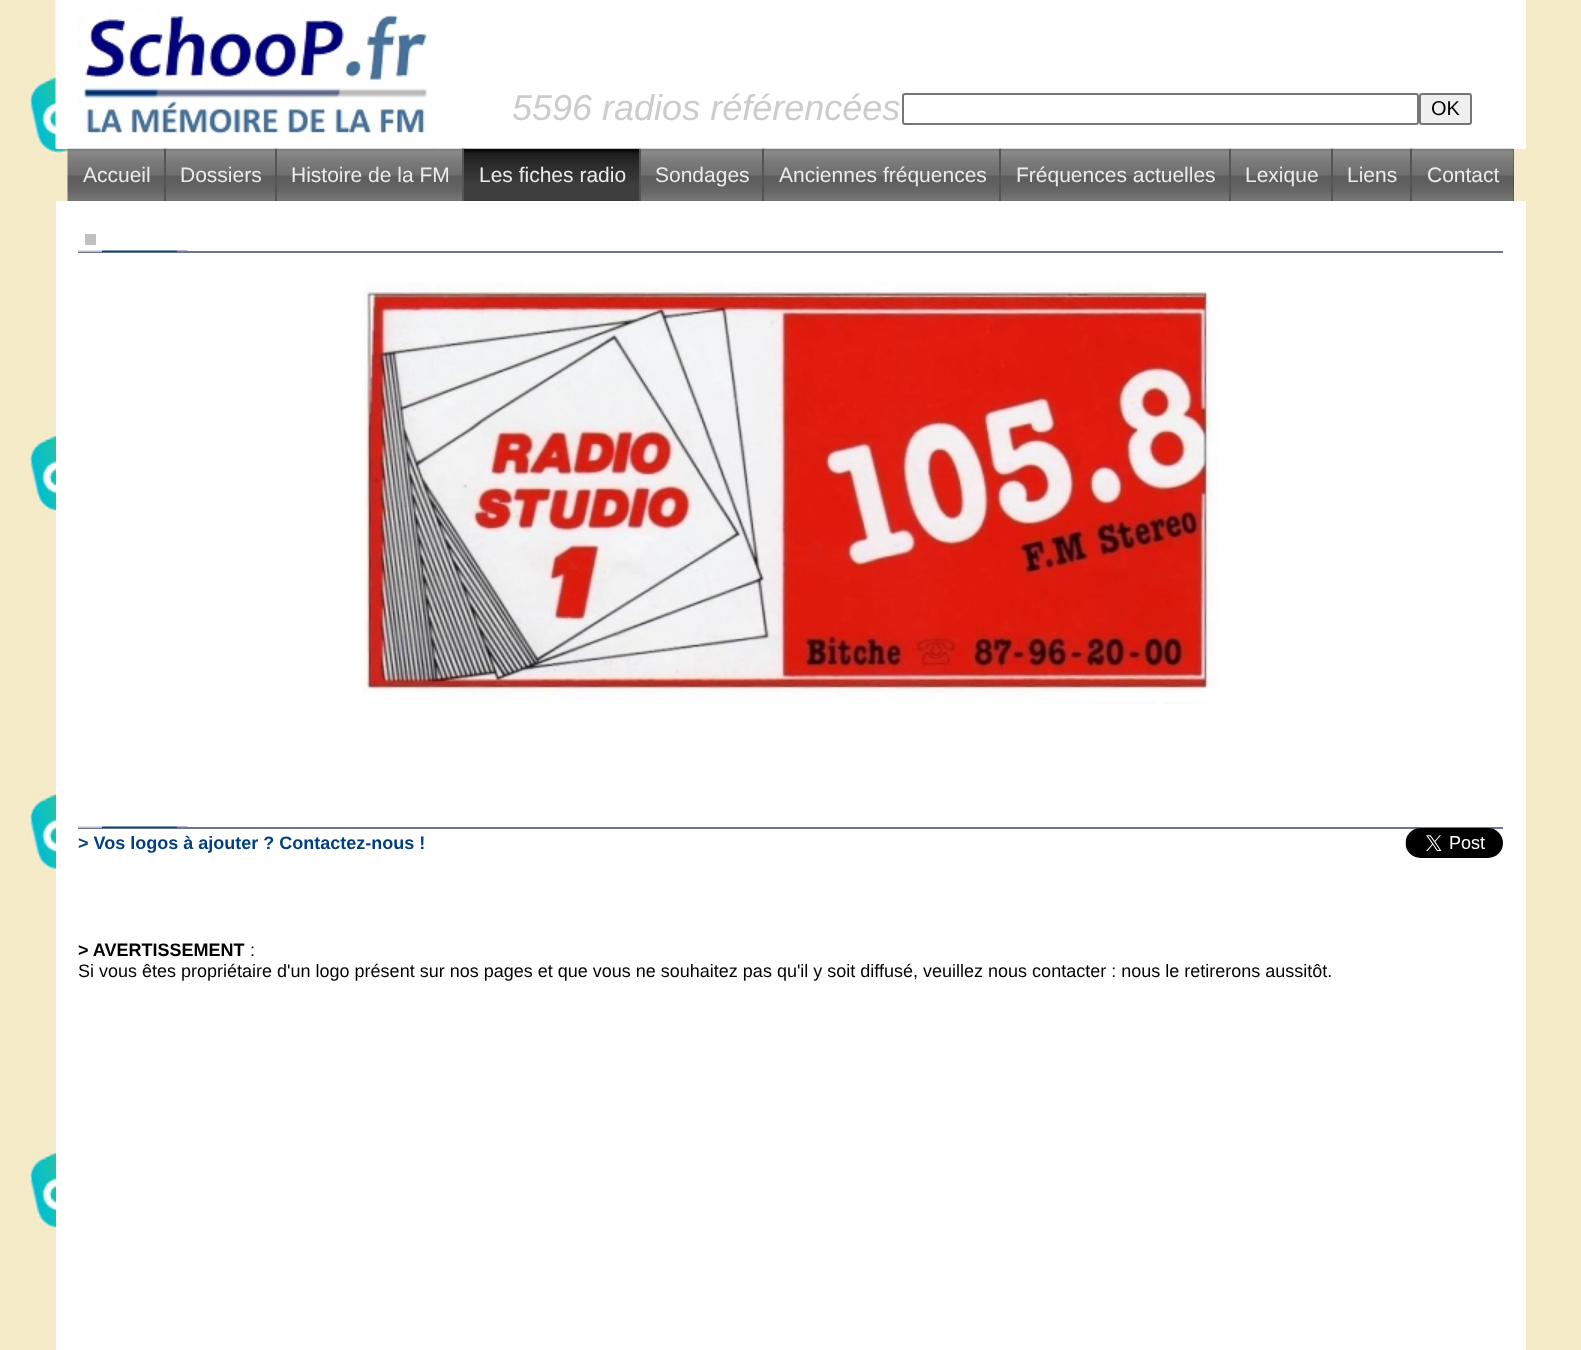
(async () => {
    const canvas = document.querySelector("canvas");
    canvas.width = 1581;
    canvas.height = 1350;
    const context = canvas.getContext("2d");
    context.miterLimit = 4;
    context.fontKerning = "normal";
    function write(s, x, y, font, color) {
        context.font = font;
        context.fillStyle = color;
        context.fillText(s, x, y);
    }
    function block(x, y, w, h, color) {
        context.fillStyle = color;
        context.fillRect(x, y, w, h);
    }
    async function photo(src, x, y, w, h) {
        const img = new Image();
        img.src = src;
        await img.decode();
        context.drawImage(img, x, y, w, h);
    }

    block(0, 0, 1581, 1350, "rgb(246, 235, 201)");
    await photo("media/1.png", 27, 16, 41, 1334);
    block(56, 0, 1470, 149, "rgb(255, 255, 255)");
    await photo("media/2.png", 55, 0, 381, 149);
    write("5596 radios référencées", 512, 120, "italic 36px Liberation Sans", "rgb(204, 204, 204)");
    context.beginPath();
    context.roundRect(903, 94, 515, 30, 2);
    context.strokeStyle = "rgb(118, 118, 118)";
    context.lineWidth = 2;
    context.stroke();
    context.fillStyle = "rgb(239, 239, 239)";
    context.beginPath();
    context.roundRect(1420, 94, 51, 30, 2);
    context.fill();
    context.stroke();
    write("OK", 1431, 115, "20px Liberation Sans", "rgb(0, 0, 0)");
    await photo("media/3.png", 67, 148, 100, 53);
    write("Accueil", 83, 182, "21px Liberation Sans", "rgb(235, 235, 235)");
    await photo("media/4.png", 163, 148, 115, 53);
    block(164, 149, 2, 52, "rgb(85, 85, 85)");
    write("Dossiers", 180, 182, "21px Liberation Sans", "rgb(235, 235, 235)");
    await photo("media/5.png", 274, 148, 191, 53);
    block(275, 149, 2, 52, "rgb(85, 85, 85)");
    write("Histoire de la FM", 291, 182, "21px Liberation Sans", "rgb(235, 235, 235)");
    await photo("media/6.png", 462, 148, 179, 53);
    block(462, 149, 2, 52, "rgb(85, 85, 85)");
    write("Les fiches radio", 479, 182, "21px Liberation Sans", "rgb(235, 235, 235)");
    await photo("media/7.png", 639, 148, 126, 53);
    block(639, 149, 2, 52, "rgb(85, 85, 85)");
    write("Sondages", 655, 182, "21px Liberation Sans", "rgb(235, 235, 235)");
    await photo("media/8.png", 762, 148, 240, 53);
    block(762, 149, 2, 52, "rgb(85, 85, 85)");
    write("Anciennes fréquences", 779, 182, "21px Liberation Sans", "rgb(235, 235, 235)");
    await photo("media/9.png", 999, 148, 231, 53);
    block(999, 149, 2, 52, "rgb(85, 85, 85)");
    write("Fréquences actuelles", 1016, 182, "21px Liberation Sans", "rgb(235, 235, 235)");
    await photo("media/10.png", 1228, 148, 106, 53);
    block(1229, 149, 2, 52, "rgb(85, 85, 85)");
    write("Lexique", 1245, 182, "21px Liberation Sans", "rgb(235, 235, 235)");
    await photo("media/11.png", 1330, 148, 83, 53);
    block(1331, 149, 2, 52, "rgb(85, 85, 85)");
    write("Liens", 1347, 182, "21px Liberation Sans", "rgb(235, 235, 235)");
    block(1513, 149, 1, 52, "rgb(68, 68, 68)");
    await photo("media/12.png", 1410, 148, 104, 53);
    block(1410, 149, 2, 52, "rgb(85, 85, 85)");
    write("Contact", 1427, 182, "21px Liberation Sans", "rgb(235, 235, 235)");
    block(56, 201, 1470, 1149, "rgb(255, 255, 255)");
    block(85, 234, 11, 11, "rgb(192, 192, 192)");
    block(78, 251, 1425, 2, "rgb(107, 118, 148)");
    await photo("media/13.png", 78, 250, 24, 2);
    await photo("media/14.png", 102, 250, 75, 2);
    await photo("media/15.png", 177, 250, 11, 1);
    await photo("media/16.png", 363, 281, 855, 423);
    block(78, 827, 1425, 2, "rgb(107, 118, 148)");
    await photo("media/13.png", 78, 826, 24, 2);
    await photo("media/14.png", 102, 826, 75, 2);
    await photo("media/15.png", 177, 826, 11, 1);
    write("> Vos logos à ajouter ? Contactez-nous !", 78, 849, "bold 18px Liberation Sans", "rgb(0, 64, 128)");
    await photo("media/17.png", 1405, 828, 98, 30);
    write("> AVERTISSEMENT", 78, 956, "bold 18px Liberation Sans", "rgb(0, 0, 0)");
    write(":", 250, 956, "18px Liberation Sans", "rgb(0, 0, 0)");
    write("Si vous êtes propriétaire d'un logo présent sur nos pages et que vous ne souhaitez pas qu'il y soit diffusé, veuillez nous contacter : nous le retirerons aussitôt.", 78, 977, "18px Liberation Sans", "rgb(0, 0, 0)");
})();
